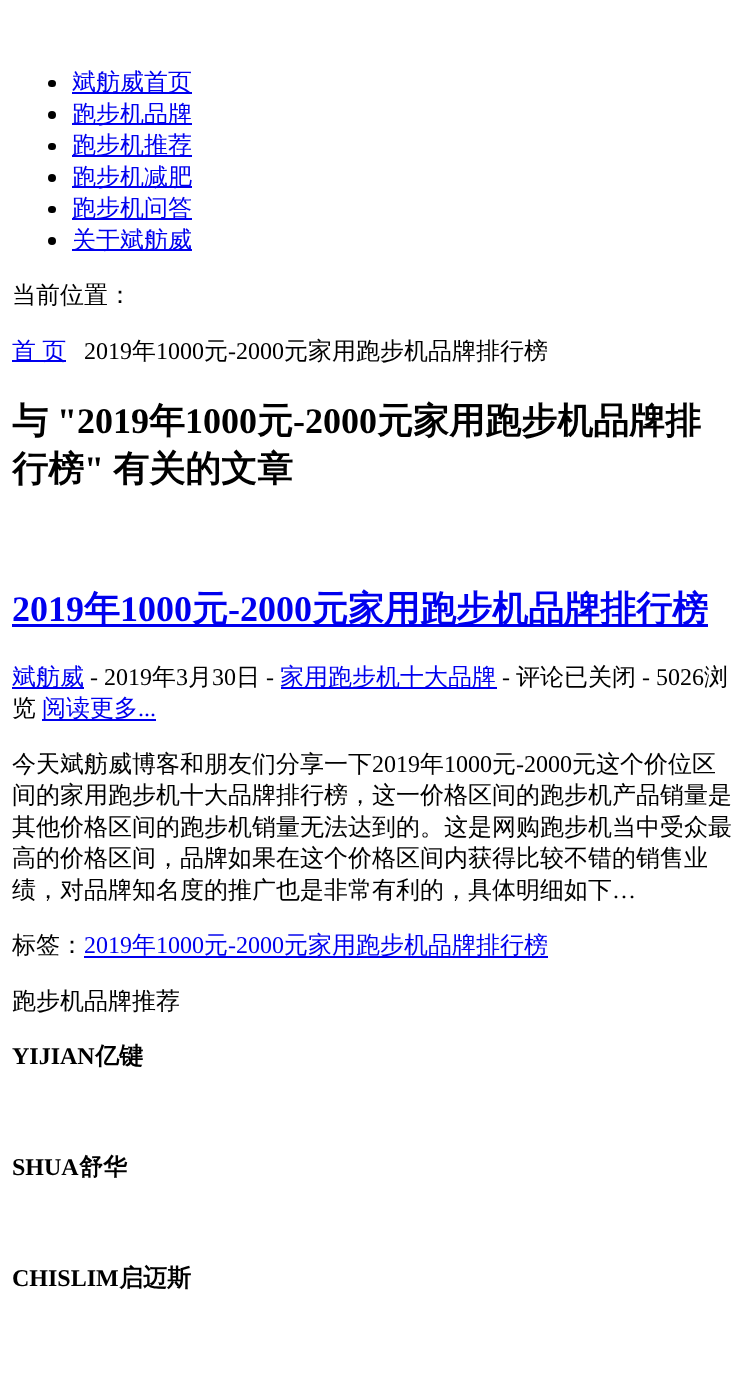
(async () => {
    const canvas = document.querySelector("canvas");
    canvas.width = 747;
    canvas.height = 1379;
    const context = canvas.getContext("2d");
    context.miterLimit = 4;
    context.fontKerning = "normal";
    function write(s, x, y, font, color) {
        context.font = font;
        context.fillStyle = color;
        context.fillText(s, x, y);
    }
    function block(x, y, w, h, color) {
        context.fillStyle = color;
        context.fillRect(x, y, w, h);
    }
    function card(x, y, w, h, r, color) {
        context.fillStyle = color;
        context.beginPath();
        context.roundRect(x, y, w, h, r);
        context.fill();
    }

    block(0, 0, 747, 1379, "rgb(255, 255, 255)");
    card(48, 80, 8, 7, 3.5, "rgb(0, 0, 0)");
    block(72, 92, 120, 2, "rgb(0, 0, 238)");
    write("斌舫威首页", 72, 90, "500 24px WenQuanYi Zen Hei", "rgb(0, 0, 238)");
    context.fillStyle = "rgb(0, 0, 0)";
    context.beginPath();
    context.arc(52, 115, 4, 0, Math.PI * 2);
    context.fill();
    block(72, 123, 120, 2, "rgb(0, 0, 238)");
    write("跑步机品牌", 72, 122, "500 24px WenQuanYi Zen Hei", "rgb(0, 0, 238)");
    card(48, 143, 8, 7, 3.5, "rgb(0, 0, 0)");
    block(72, 155, 120, 2, "rgb(0, 0, 238)");
    write("跑步机推荐", 72, 153, "500 24px WenQuanYi Zen Hei", "rgb(0, 0, 238)");
    context.fillStyle = "rgb(0, 0, 0)";
    context.beginPath();
    context.arc(52, 178, 4, 0, Math.PI * 2);
    context.fill();
    block(72, 186, 120, 2, "rgb(0, 0, 238)");
    write("跑步机减肥", 72, 185, "500 24px WenQuanYi Zen Hei", "rgb(0, 0, 238)");
    card(48, 206, 8, 7, 3.5, "rgb(0, 0, 0)");
    block(72, 218, 120, 2, "rgb(0, 0, 238)");
    write("跑步机问答", 72, 216, "500 24px WenQuanYi Zen Hei", "rgb(0, 0, 238)");
    context.fillStyle = "rgb(0, 0, 0)";
    context.beginPath();
    context.arc(52, 241, 4, 0, Math.PI * 2);
    context.fill();
    block(72, 249, 120, 2, "rgb(0, 0, 238)");
    write("关于斌舫威", 72, 248, "500 24px WenQuanYi Zen Hei", "rgb(0, 0, 238)");
    write("当前位置：", 12, 303, "500 24px WenQuanYi Zen Hei", "rgb(0, 0, 0)");
    block(12, 360, 54, 2, "rgb(0, 0, 238)");
    context.wordSpacing = "-1px";
    write("首 页", 12, 359, "500 24px WenQuanYi Zen Hei", "rgb(0, 0, 238)");
    context.wordSpacing = "0px";
    write("2019", 84, 359, "24px Liberation Serif", "rgb(0, 0, 0)");
    write("年", 132, 359, "500 24px WenQuanYi Zen Hei", "rgb(0, 0, 0)");
    write("1000", 156, 359, "24px Liberation Serif", "rgb(0, 0, 0)");
    write("元", 204, 359, "500 24px WenQuanYi Zen Hei", "rgb(0, 0, 0)");
    write("-2000", 228, 359, "24px Liberation Serif", "rgb(0, 0, 0)");
    write("元家用跑步机品牌排行榜", 284, 359, "500 24px WenQuanYi Zen Hei", "rgb(0, 0, 0)");
    write("与", 12, 433, "bold 36px WenQuanYi Zen Hei", "rgb(0, 0, 0)");
    write("\"2019", 57, 433, "bold 36px Liberation Serif", "rgb(0, 0, 0)");
    write("年", 149, 433, "bold 36px WenQuanYi Zen Hei", "rgb(0, 0, 0)");
    write("1000", 185, 433, "bold 36px Liberation Serif", "rgb(0, 0, 0)");
    write("元", 257, 433, "bold 36px WenQuanYi Zen Hei", "rgb(0, 0, 0)");
    write("-2000", 293, 433, "bold 36px Liberation Serif", "rgb(0, 0, 0)");
    write("元家用跑步机品牌排", 377, 433, "bold 36px WenQuanYi Zen Hei", "rgb(0, 0, 0)");
    write("行榜", 12, 481, "bold 36px WenQuanYi Zen Hei", "rgb(0, 0, 0)");
    write("\"", 84, 481, "bold 36px Liberation Serif", "rgb(0, 0, 0)");
    write("有关的文章", 113, 481, "bold 36px WenQuanYi Zen Hei", "rgb(0, 0, 0)");
    write("2019", 12, 621, "bold 36px Liberation Serif", "rgb(0, 0, 238)");
    block(12, 624, 696, 3, "rgb(0, 0, 238)");
    write("年", 84, 621, "bold 36px WenQuanYi Zen Hei", "rgb(0, 0, 238)");
    write("1000", 120, 621, "bold 36px Liberation Serif", "rgb(0, 0, 238)");
    write("元", 192, 621, "bold 36px WenQuanYi Zen Hei", "rgb(0, 0, 238)");
    write("-2000", 228, 621, "bold 36px Liberation Serif", "rgb(0, 0, 238)");
    write("元家用跑步机品牌排行榜", 312, 621, "bold 36px WenQuanYi Zen Hei", "rgb(0, 0, 238)");
    block(12, 687, 72, 2, "rgb(0, 0, 238)");
    write("斌舫威", 12, 685, "500 24px WenQuanYi Zen Hei", "rgb(0, 0, 238)");
    write("- 2019", 90, 685, "24px Liberation Serif", "rgb(0, 0, 0)");
    write("年", 152, 685, "500 24px WenQuanYi Zen Hei", "rgb(0, 0, 0)");
    write("3", 176, 685, "24px Liberation Serif", "rgb(0, 0, 0)");
    write("月", 188, 685, "500 24px WenQuanYi Zen Hei", "rgb(0, 0, 0)");
    write("30", 212, 685, "24px Liberation Serif", "rgb(0, 0, 0)");
    write("日", 236, 685, "500 24px WenQuanYi Zen Hei", "rgb(0, 0, 0)");
    write("-", 266, 685, "24px Liberation Serif", "rgb(0, 0, 0)");
    block(281, 687, 216, 2, "rgb(0, 0, 238)");
    write("家用跑步机十大品牌", 280, 685, "500 24px WenQuanYi Zen Hei", "rgb(0, 0, 238)");
    write("-", 502, 685, "24px Liberation Serif", "rgb(0, 0, 0)");
    write("评论已关闭", 516, 685, "500 24px WenQuanYi Zen Hei", "rgb(0, 0, 0)");
    write("- 5026", 642, 685, "24px Liberation Serif", "rgb(0, 0, 0)");
    write("浏", 704, 685, "500 24px WenQuanYi Zen Hei", "rgb(0, 0, 0)");
    write("览", 12, 716, "500 24px WenQuanYi Zen Hei", "rgb(0, 0, 0)");
    block(42, 719, 114, 2, "rgb(0, 0, 238)");
    write("阅读更多", 42, 716, "500 24px WenQuanYi Zen Hei", "rgb(0, 0, 238)");
    write("...", 138, 716, "24px Liberation Serif", "rgb(0, 0, 238)");
    write("今天斌舫威博客和朋友们分享一下", 12, 772, "500 24px WenQuanYi Zen Hei", "rgb(0, 0, 0)");
    write("2019", 372, 772, "24px Liberation Serif", "rgb(0, 0, 0)");
    write("年", 420, 772, "500 24px WenQuanYi Zen Hei", "rgb(0, 0, 0)");
    write("1000", 444, 772, "24px Liberation Serif", "rgb(0, 0, 0)");
    write("元", 492, 772, "500 24px WenQuanYi Zen Hei", "rgb(0, 0, 0)");
    write("-2000", 516, 772, "24px Liberation Serif", "rgb(0, 0, 0)");
    write("元这个价位区", 572, 772, "500 24px WenQuanYi Zen Hei", "rgb(0, 0, 0)");
    write("间的家用跑步机十大品牌排行榜，这一价格区间的跑步机产品销量是", 12, 803, "500 24px WenQuanYi Zen Hei", "rgb(0, 0, 0)");
    write("其他价格区间的跑步机销量无法达到的。这是网购跑步机当中受众最", 12, 835, "500 24px WenQuanYi Zen Hei", "rgb(0, 0, 0)");
    write("高的价格区间，品牌如果在这个价格区间内获得比较不错的销售业", 12, 866, "500 24px WenQuanYi Zen Hei", "rgb(0, 0, 0)");
    write("绩，对品牌知名度的推广也是非常有利的，具体明细如下", 12, 898, "500 24px WenQuanYi Zen Hei", "rgb(0, 0, 0)");
    write("…", 612, 898, "24px Liberation Serif", "rgb(0, 0, 0)");
    write("标签：", 12, 953, "500 24px WenQuanYi Zen Hei", "rgb(0, 0, 0)");
    write("2019", 84, 953, "24px Liberation Serif", "rgb(0, 0, 238)");
    block(84, 956, 464, 2, "rgb(0, 0, 238)");
    write("年", 132, 953, "500 24px WenQuanYi Zen Hei", "rgb(0, 0, 238)");
    write("1000", 156, 953, "24px Liberation Serif", "rgb(0, 0, 238)");
    write("元", 204, 953, "500 24px WenQuanYi Zen Hei", "rgb(0, 0, 238)");
    write("-2000", 228, 953, "24px Liberation Serif", "rgb(0, 0, 238)");
    write("元家用跑步机品牌排行榜", 284, 953, "500 24px WenQuanYi Zen Hei", "rgb(0, 0, 238)");
    write("跑步机品牌推荐", 12, 1009, "500 24px WenQuanYi Zen Hei", "rgb(0, 0, 0)");
    write("YIJIAN", 12, 1064, "bold 24px Liberation Serif", "rgb(0, 0, 0)");
    write("亿键", 95, 1064, "bold 24px WenQuanYi Zen Hei", "rgb(0, 0, 0)");
    write("SHUA", 12, 1175, "bold 24px Liberation Serif", "rgb(0, 0, 0)");
    write("舒华", 79, 1175, "bold 24px WenQuanYi Zen Hei", "rgb(0, 0, 0)");
    write("CHISLIM", 12, 1286, "bold 24px Liberation Serif", "rgb(0, 0, 0)");
    write("启迈斯", 119, 1286, "bold 24px WenQuanYi Zen Hei", "rgb(0, 0, 0)");
})();
